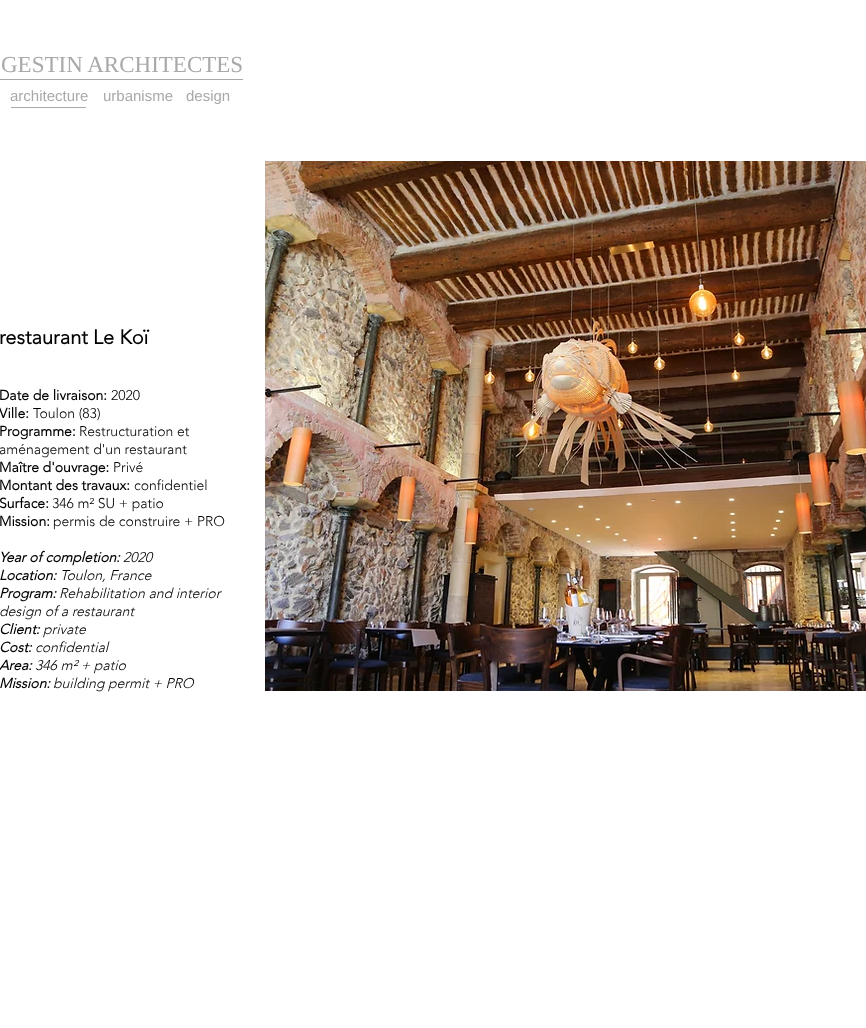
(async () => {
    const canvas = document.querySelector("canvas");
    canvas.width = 866;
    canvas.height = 1028;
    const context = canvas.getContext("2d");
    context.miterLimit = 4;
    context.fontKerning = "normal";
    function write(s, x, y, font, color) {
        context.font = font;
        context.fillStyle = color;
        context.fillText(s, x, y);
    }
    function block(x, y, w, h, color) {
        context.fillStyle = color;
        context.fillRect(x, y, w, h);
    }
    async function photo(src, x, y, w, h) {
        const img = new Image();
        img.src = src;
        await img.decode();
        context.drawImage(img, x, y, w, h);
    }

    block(0, 0, 866, 1028, "rgb(255, 255, 255)");
    write("GESTIN ARCHITECTES", 1, 72, "23px Liberation Serif", "rgb(170, 168, 168)");
    block(0, 79, 243, 1, "rgb(170, 168, 168)");
    write("architecture", 10, 101, "15px Liberation Sans", "rgb(170, 168, 168)");
    write("urbanisme", 103, 101, "15px Liberation Sans", "rgb(170, 168, 168)");
    write("design", 186, 101, "15px Liberation Sans", "rgb(170, 168, 168)");
    block(11, 107, 75, 1, "rgb(170, 168, 168)");
    write("restaurant Le Koï", -1, 344, "bold 20px 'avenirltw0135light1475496'", "rgb(0, 0, 0)");
    write("Date de livraison:", -1, 400, "bold 14px 'avenirltw0135light1475496'", "rgb(0, 0, 0)");
    write("2020", 111, 400, "300 14px 'avenirltw0135light1475496'", "rgb(0, 0, 0)");
    write("Ville:", -1, 418, "bold 14px 'avenirltw0135light1475496'", "rgb(0, 0, 0)");
    write("Toulon (83)", 33, 418, "300 14px 'avenirltw0135light1475496'", "rgb(0, 0, 0)");
    write("Programme:", -1, 436, "bold 14px 'avenirltw0135light1475496'", "rgb(0, 0, 0)");
    write("Restructuration et", 79, 436, "300 14px 'avenirltw0135light1475496'", "rgb(0, 0, 0)");
    write("aménagement d'un restaurant", -1, 454, "300 14px 'avenirltw0135light1475496'", "rgb(0, 0, 0)");
    write("Maître d'ouvrage:", -1, 472, "bold 14px 'avenirltw0135light1475496'", "rgb(0, 0, 0)");
    write("Privé", 113, 472, "300 14px 'avenirltw0135light1475496'", "rgb(0, 0, 0)");
    write("Montant des travaux:", -1, 490, "bold 14px 'avenirltw0135light1475496'", "rgb(0, 0, 0)");
    write("confidentiel", 134, 490, "300 14px 'avenirltw0135light1475496'", "rgb(0, 0, 0)");
    write("Surface:", -1, 508, "bold 14px 'avenirltw0135light1475496'", "rgb(0, 0, 0)");
    write("346 m² SU + patio", 52, 508, "300 14px 'avenirltw0135light1475496'", "rgb(0, 0, 0)");
    write("Mission:", -1, 526, "bold 14px 'avenirltw0135light1475496'", "rgb(0, 0, 0)");
    write("permis de construire + PRO", 53, 526, "300 14px 'avenirltw0135light1475496'", "rgb(0, 0, 0)");
    write("Year of completion:", -1, 562, "italic bold 14px 'avenirltw0135light1475496'", "rgb(0, 0, 0)");
    write("2020", 123, 562, "italic 300 14px 'avenirltw0135light1475496'", "rgb(0, 0, 0)");
    write("Location:", -1, 580, "italic bold 14px 'avenirltw0135light1475496'", "rgb(0, 0, 0)");
    write("Toulon, France", 60, 580, "italic 300 14px 'avenirltw0135light1475496'", "rgb(0, 0, 0)");
    write("Program:", -1, 598, "italic bold 14px 'avenirltw0135light1475496'", "rgb(0, 0, 0)");
    write("Rehabilitation and interior", 59, 598, "italic 300 14px 'avenirltw0135light1475496'", "rgb(0, 0, 0)");
    write("design of a restaurant", -1, 616, "italic 300 14px 'avenirltw0135light1475496'", "rgb(0, 0, 0)");
    write("Client:", -1, 634, "italic bold 14px 'avenirltw0135light1475496'", "rgb(0, 0, 0)");
    write("private", 43, 634, "italic 300 14px 'avenirltw0135light1475496'", "rgb(0, 0, 0)");
    write("Cost:", -1, 652, "italic bold 14px 'avenirltw0135light1475496'", "rgb(0, 0, 0)");
    write("confidential", 35, 652, "italic 300 14px 'avenirltw0135light1475496'", "rgb(0, 0, 0)");
    write("Area:", -1, 670, "italic bold 14px 'avenirltw0135light1475496'", "rgb(0, 0, 0)");
    write("346 m² + patio", 35, 670, "italic 300 14px 'avenirltw0135light1475496'", "rgb(0, 0, 0)");
    write("Mission:", -1, 688, "italic bold 14px 'avenirltw0135light1475496'", "rgb(0, 0, 0)");
    write("building permit + PRO", 53, 688, "italic 300 14px 'avenirltw0135light1475496'", "rgb(0, 0, 0)");
    await photo("media/1.png", 265, 161, 601, 530);
})();
